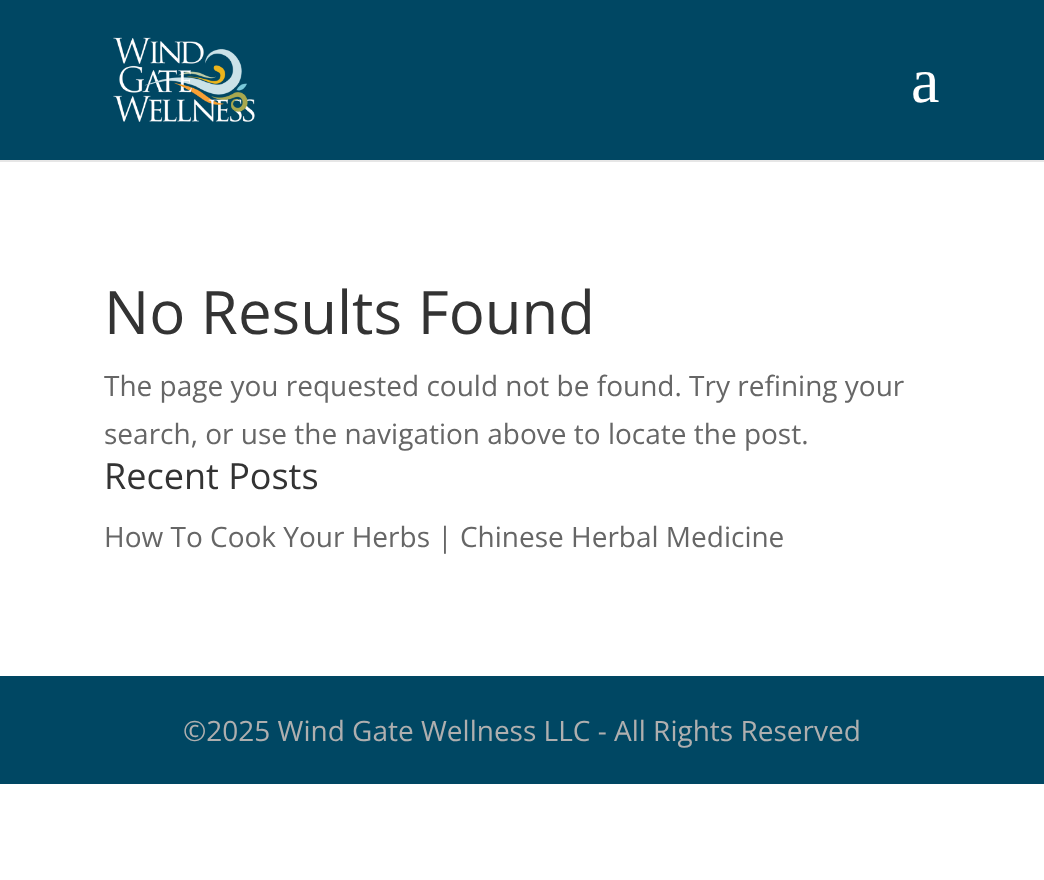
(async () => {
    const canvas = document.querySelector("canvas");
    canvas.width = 1044;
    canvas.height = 880;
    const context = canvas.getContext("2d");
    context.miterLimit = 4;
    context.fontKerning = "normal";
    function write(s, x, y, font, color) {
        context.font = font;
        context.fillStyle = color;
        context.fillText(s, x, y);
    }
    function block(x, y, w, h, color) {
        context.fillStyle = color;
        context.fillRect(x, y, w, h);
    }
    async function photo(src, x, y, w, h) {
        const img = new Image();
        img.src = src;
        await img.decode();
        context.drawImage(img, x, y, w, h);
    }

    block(0, 0, 1044, 880, "rgb(255, 255, 255)");
    block(0, 160, 1044, 2, "rgb(230, 230, 230)");
    block(0, 0, 1044, 160, "rgb(0, 71, 99)");
    await photo("media/1.png", 113, 37, 142, 85);
    write("a", 911, 102, "64px Liberation Serif", "rgb(255, 255, 255)");
    write("No Results Found", 104, 334, "60px Open Sans", "rgb(51, 51, 51)");
    write("The page you requested could not be found. Try refining your", 104, 396, "28px Open Sans", "rgb(102, 102, 102)");
    write("search, or use the navigation above to locate the post.", 104, 444, "28px Open Sans", "rgb(102, 102, 102)");
    write("Recent Posts", 104, 489, "36px Open Sans", "rgb(51, 51, 51)");
    write("How To Cook Your Herbs | Chinese Herbal Medicine", 104, 547, "28px Open Sans", "rgb(102, 102, 102)");
    block(0, 676, 1044, 108, "rgb(0, 71, 99)");
    write("©2025 Wind Gate Wellness LLC - All Rights Reserved", 183, 741, "28px Open Sans", "rgb(175, 175, 175)");
})();
